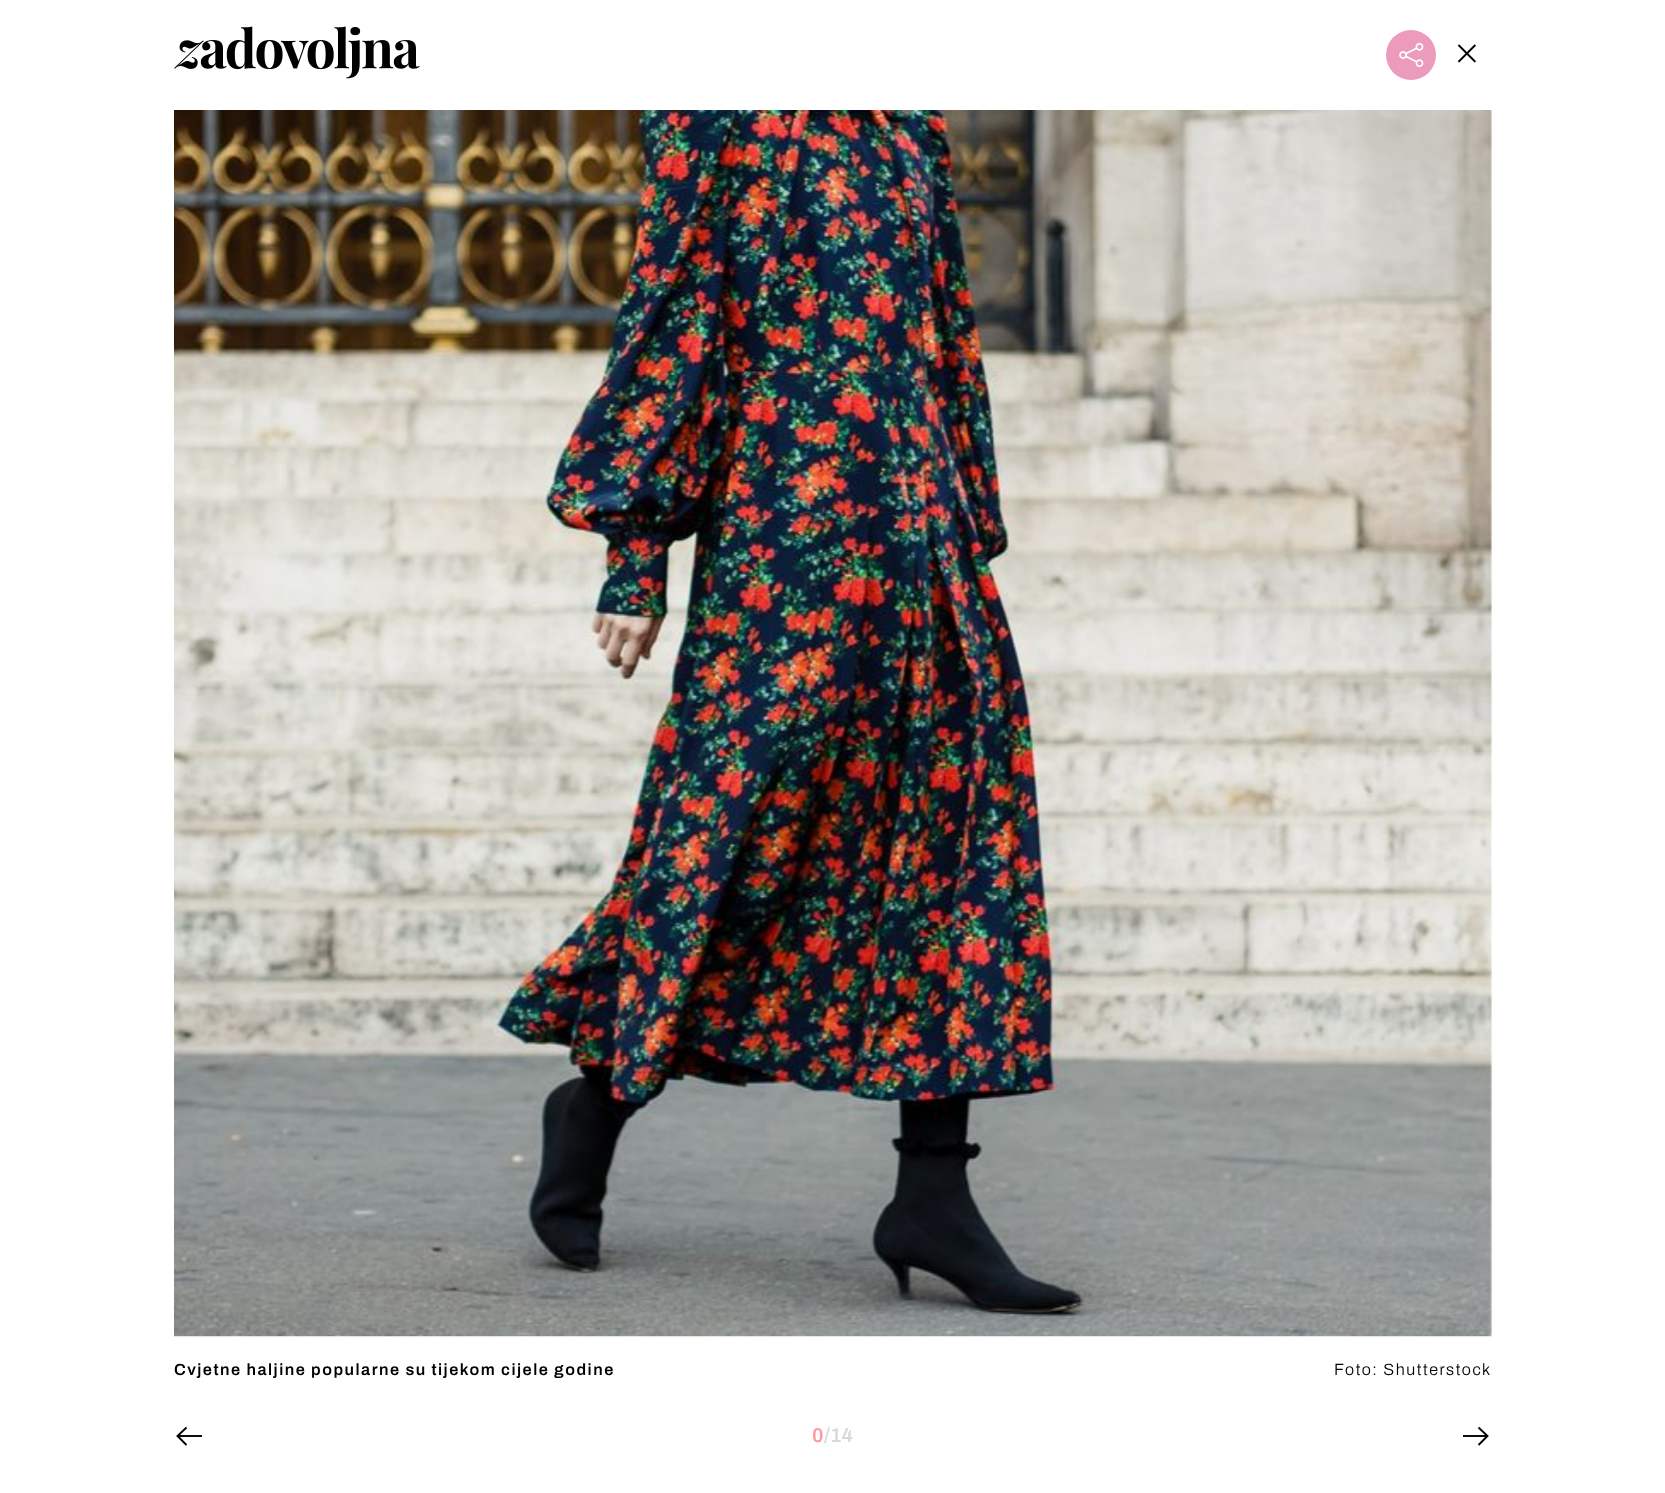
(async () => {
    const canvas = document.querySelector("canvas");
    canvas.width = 1665;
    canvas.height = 1493;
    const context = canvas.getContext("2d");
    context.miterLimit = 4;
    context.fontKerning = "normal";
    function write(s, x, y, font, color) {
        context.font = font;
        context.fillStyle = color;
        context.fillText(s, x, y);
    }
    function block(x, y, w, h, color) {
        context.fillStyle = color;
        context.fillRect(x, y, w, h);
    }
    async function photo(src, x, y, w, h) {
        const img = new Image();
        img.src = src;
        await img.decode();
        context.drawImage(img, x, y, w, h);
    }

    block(0, 0, 1665, 1493, "rgb(255, 255, 255)");
    await photo("media/1.png", 174, 26, 246, 53);
    context.fillStyle = "rgb(236, 155, 188)";
    context.beginPath();
    context.arc(1411, 55, 25, 0, Math.PI * 2);
    context.fill();
    await photo("media/2.png", 1399, 42, 25, 26);
    await photo("media/3.png", 1457, 44, 19, 19);
    await photo("media/4.png", 174, 110, 1318, 1227);
    context.letterSpacing = "1.5px";
    write("Cvjetne haljine popularne su tijekom cijele godine", 174, 1375, "600 16.25px Archivo", "rgb(0, 0, 0)");
    write("Foto: Shutterstock", 1334, 1375, "300 16.25px Archivo", "rgb(0, 0, 0)");
    block(178, 1435, 24, 2, "rgb(13, 13, 13)");
    context.beginPath();
    context.moveTo(186.5, 1427.5);
    context.lineTo(177.5, 1436);
    context.lineTo(186.5, 1445);
    context.strokeStyle = "rgb(0, 0, 0)";
    context.lineWidth = 1.9;
    context.stroke();
    context.letterSpacing = "0px";
    write("0", 812, 1442, "600 20px Archivo", "rgb(255, 153, 157)");
    write("/14", 824, 1442, "600 20px Archivo", "rgb(217, 217, 217)");
    block(1463, 1435, 25, 2, "rgb(13, 13, 13)");
    context.beginPath();
    context.moveTo(1478.5, 1427.5);
    context.lineTo(1487.5, 1436);
    context.lineTo(1478.5, 1445);
    context.stroke();
})();
